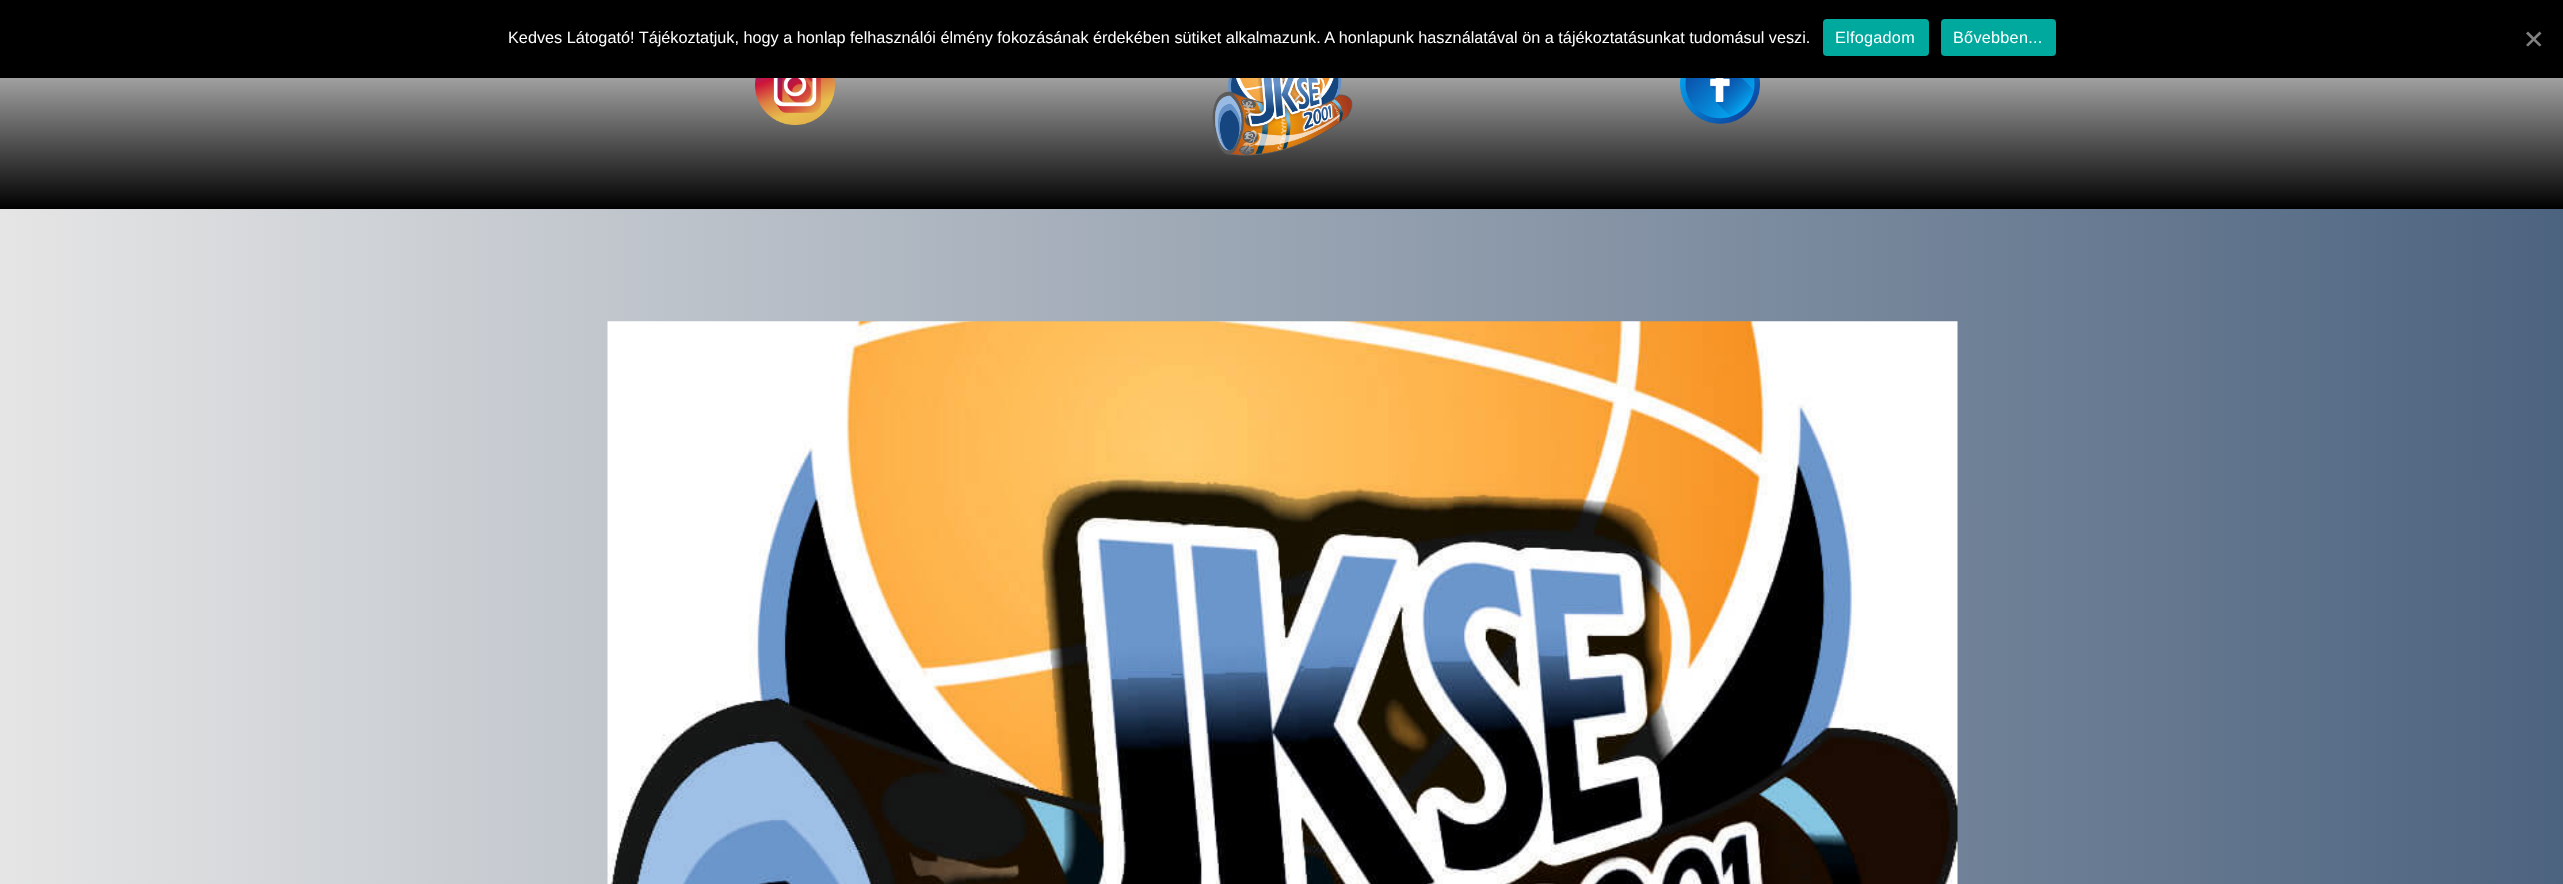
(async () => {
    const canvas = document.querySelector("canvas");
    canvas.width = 2563;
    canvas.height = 884;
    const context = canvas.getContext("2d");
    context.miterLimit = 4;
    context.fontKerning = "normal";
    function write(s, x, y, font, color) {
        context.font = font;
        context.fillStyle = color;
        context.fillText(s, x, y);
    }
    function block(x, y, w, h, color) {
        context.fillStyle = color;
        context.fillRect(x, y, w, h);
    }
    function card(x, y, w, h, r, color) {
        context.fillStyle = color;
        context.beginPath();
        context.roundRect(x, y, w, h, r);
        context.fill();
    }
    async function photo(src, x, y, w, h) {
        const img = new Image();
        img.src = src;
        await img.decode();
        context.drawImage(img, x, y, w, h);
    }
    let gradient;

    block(0, 0, 2563, 884, "rgb(255, 255, 255)");
    gradient = context.createLinearGradient(0, 443, 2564, 442);
    gradient.addColorStop(0, "rgb(229, 229, 229)");
    gradient.addColorStop(1, "rgb(76, 99, 127)");
    context.fillStyle = gradient;
    context.fillRect(0, 209, 2563, 675);
    block(0, 0, 2563, 78, "rgb(0, 0, 0)");
    write("Kedves Látogató! Tájékoztatjuk, hogy a honlap felhasználói élmény fokozásának érdekében sütiket alkalmazunk. A honlapunk használatával ön a tájékoztatásunkat tudomásul veszi.", 508, 43, "16.25px Liberation Sans", "rgb(255, 255, 255)");
    card(1823, 19, 106, 37, 4, "rgb(0, 169, 157)");
    context.letterSpacing = "0.25px";
    write("Elfogadom", 1835, 43, "16.25px Liberation Sans", "rgb(255, 255, 255)");
    card(1941, 19, 115, 37, 4, "rgb(0, 169, 157)");
    write("Bővebben...", 1953, 43, "16.25px Liberation Sans", "rgb(255, 255, 255)");
    context.fillStyle = "rgb(128, 128, 128)";
    context.beginPath();
    context.moveTo(2539.5, 31.5);
    context.lineTo(2541.5, 33.5);
    context.lineTo(2528, 46.5);
    context.lineTo(2526, 45);
    context.closePath();
    context.fill();
    context.beginPath();
    context.moveTo(2526, 33.5);
    context.lineTo(2528, 31.5);
    context.lineTo(2541.5, 45);
    context.lineTo(2539.5, 46.5);
    context.closePath();
    context.fill();
    gradient = context.createLinearGradient(1282, 0, 1282, 209);
    gradient.addColorStop(0, "rgb(255, 255, 255)");
    gradient.addColorStop(1, "rgb(0, 0, 0)");
    context.fillStyle = gradient;
    context.fillRect(0, 78, 2563, 131);
    await photo("media/1.png", 755, 78, 80, 47);
    await photo("media/2.png", 1212, 78, 141, 78);
    await photo("media/3.png", 1680, 78, 80, 46);
    await photo("media/4.png", 607, 321, 1351, 563);
})();
